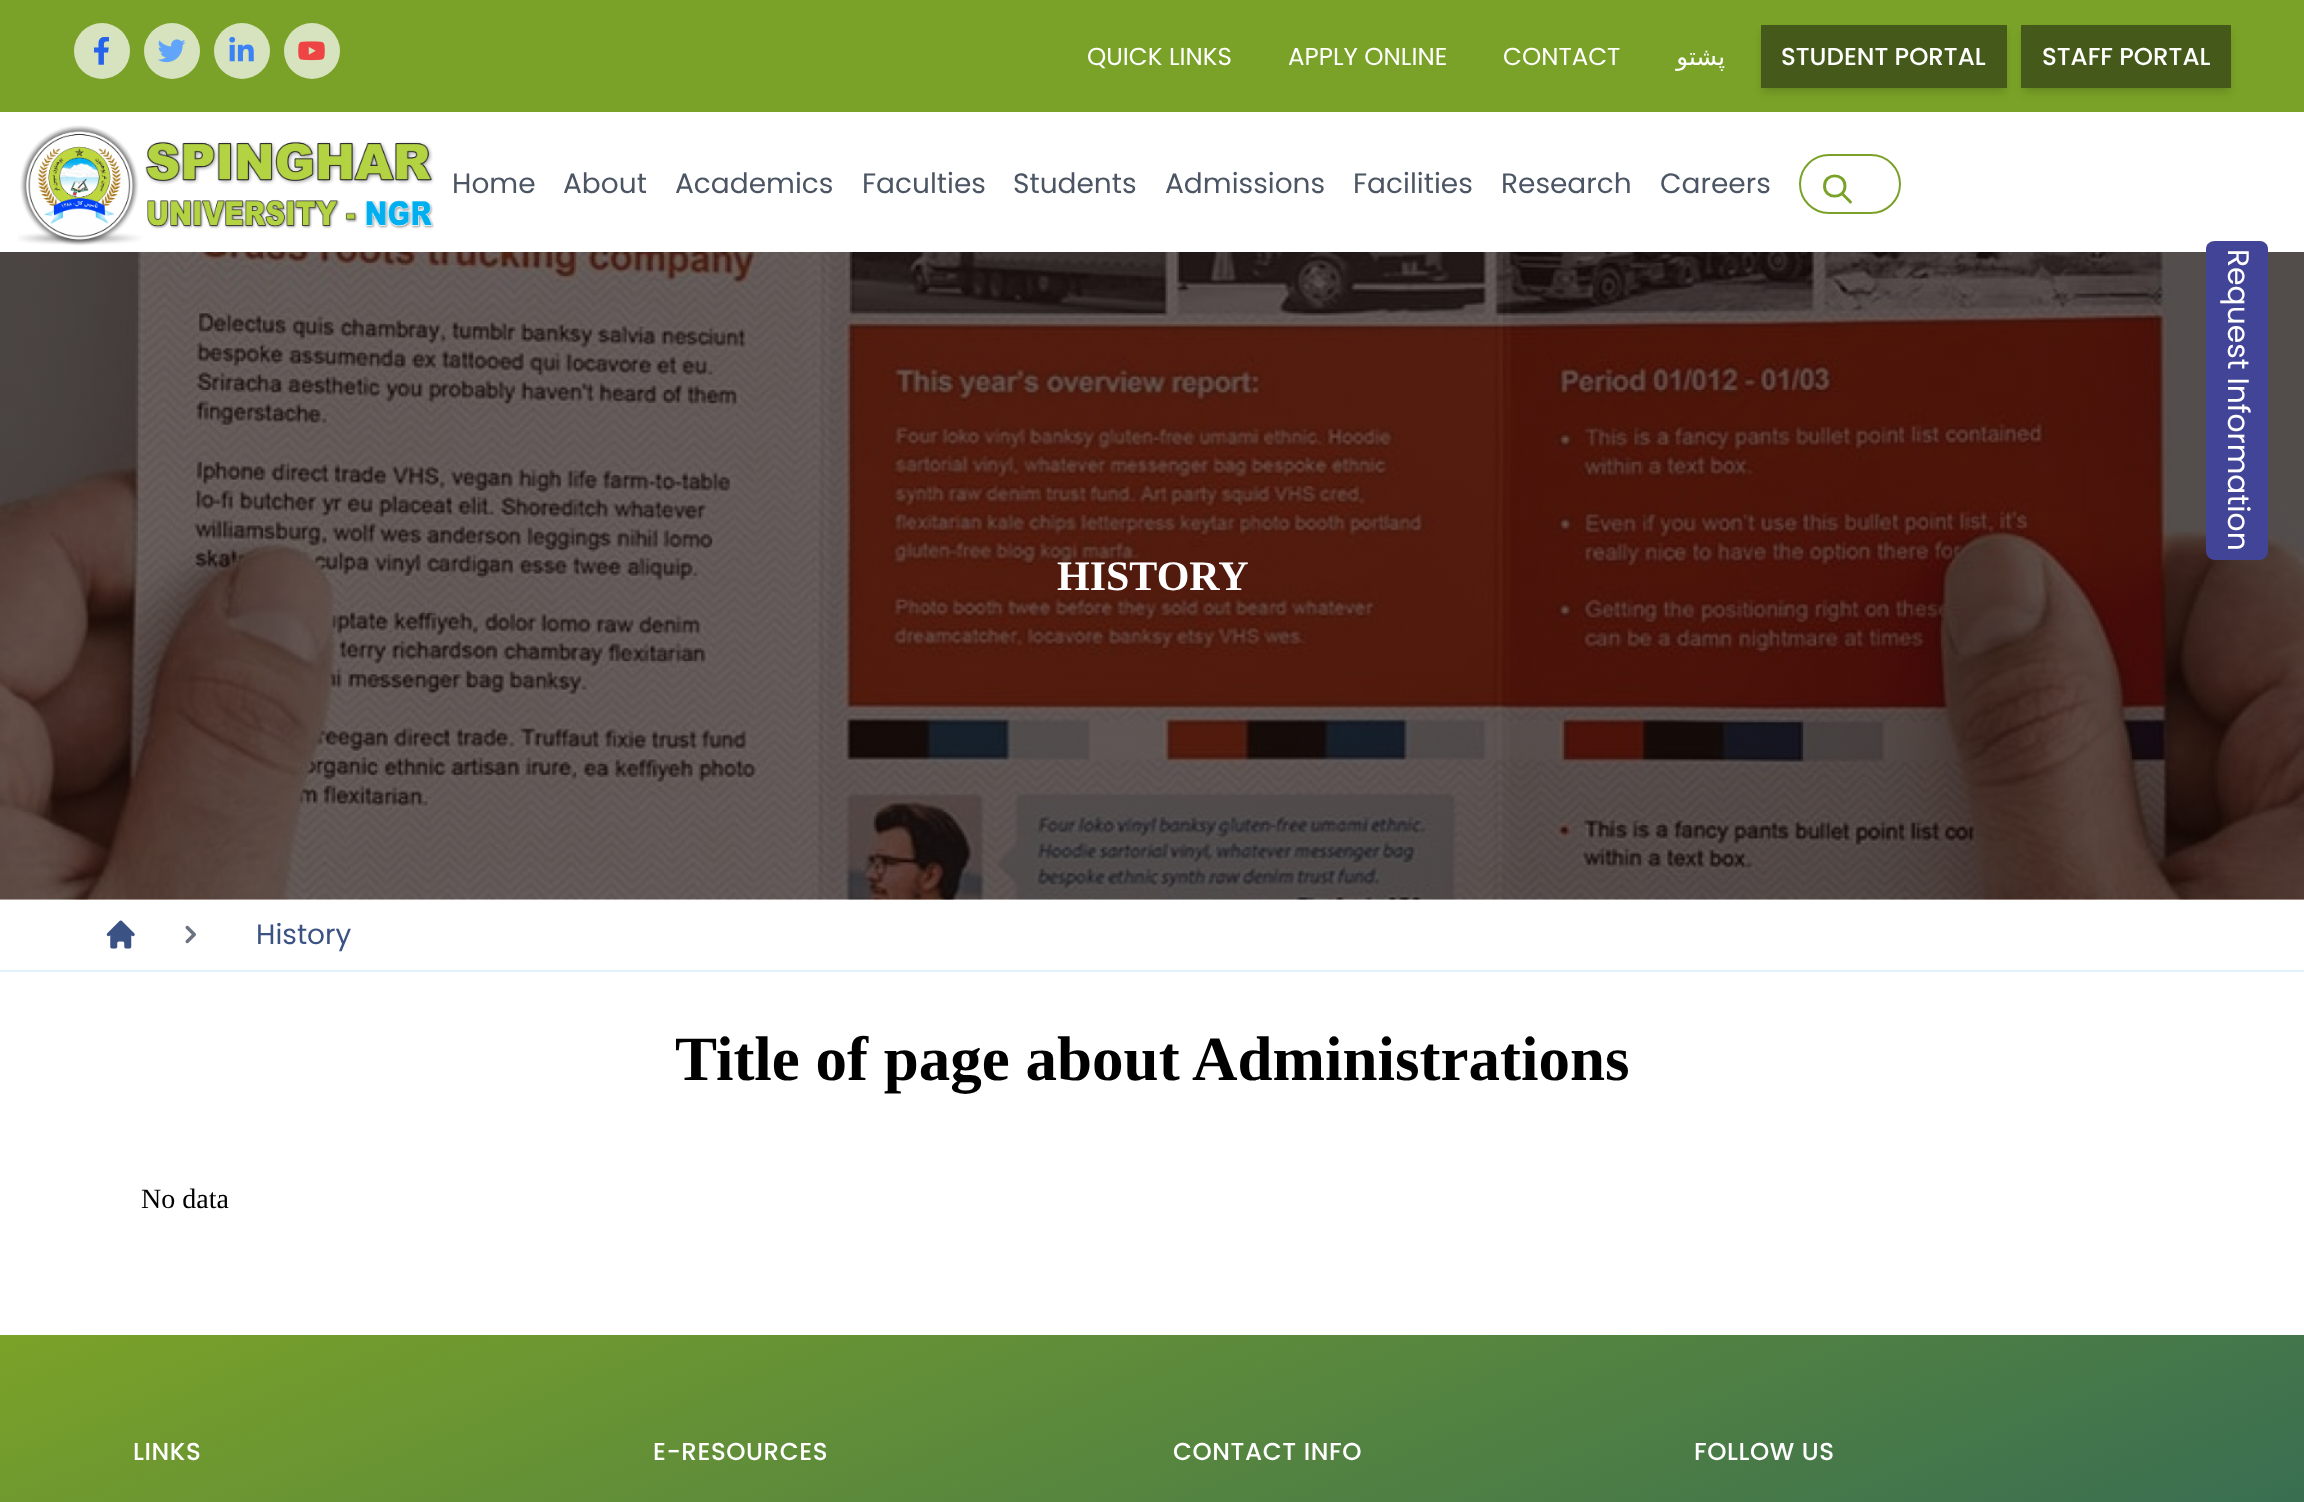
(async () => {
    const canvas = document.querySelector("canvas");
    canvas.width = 2304;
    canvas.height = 1502;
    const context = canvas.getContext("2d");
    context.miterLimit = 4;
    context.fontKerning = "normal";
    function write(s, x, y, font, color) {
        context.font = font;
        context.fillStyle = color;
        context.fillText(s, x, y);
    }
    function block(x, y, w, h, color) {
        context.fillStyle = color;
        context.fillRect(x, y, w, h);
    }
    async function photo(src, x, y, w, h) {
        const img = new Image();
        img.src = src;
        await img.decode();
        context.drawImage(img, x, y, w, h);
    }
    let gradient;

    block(0, 0, 2304, 1502, "rgb(255, 255, 255)");
    block(0, 0, 2304, 112, "rgb(122, 162, 40)");
    context.fillStyle = "rgb(215, 227, 191)";
    context.beginPath();
    context.arc(102, 51, 28, 0, Math.PI * 2);
    context.fill();
    await photo("media/1.png", 94, 37, 15, 28);
    context.beginPath();
    context.arc(172, 51, 28, 0, Math.PI * 2);
    context.fill();
    await photo("media/2.png", 158, 39, 28, 24);
    context.beginPath();
    context.arc(242, 51, 28, 0, Math.PI * 2);
    context.fill();
    await photo("media/3.png", 229, 37, 25, 25);
    context.beginPath();
    context.arc(312, 51, 28, 0, Math.PI * 2);
    context.fill();
    await photo("media/4.png", 298, 41, 27, 20);
    write("QUICK LINKS", 1087, 65, "24.5px Poppins", "rgb(255, 255, 255)");
    write("APPLY ONLINE", 1288, 65, "24.5px Poppins", "rgb(255, 255, 255)");
    write("CONTACT", 1503, 65, "24.5px Poppins", "rgb(255, 255, 255)");
    context.direction = "rtl";
    write("پشتو", 1725, 65, "24.5px DejaVu Sans", "rgb(255, 255, 255)");
    context.fillStyle = "rgba(0, 0, 0, 0.1)";
    context.filter = "blur(3.5px)";
    context.beginPath();
    context.rect(1764, 32, 240, 56);
    context.fill();
    context.filter = "none";
    context.filter = "blur(5px)";
    context.beginPath();
    context.rect(1762, 33, 244, 60);
    context.fill();
    context.filter = "none";
    block(1761, 25, 246, 63, "rgb(69, 89, 27)");
    context.direction = "ltr";
    write("STUDENT PORTAL", 1781, 65, "500 24.5px Poppins", "rgb(255, 255, 255)");
    context.fillStyle = "rgba(0, 0, 0, 0.1)";
    context.filter = "blur(3.5px)";
    context.beginPath();
    context.rect(2025, 32, 203, 56);
    context.fill();
    context.filter = "none";
    context.filter = "blur(5px)";
    context.beginPath();
    context.rect(2023, 33, 207, 60);
    context.fill();
    context.filter = "none";
    block(2021, 25, 210, 63, "rgb(69, 89, 27)");
    write("STAFF PORTAL", 2042, 65, "500 24.5px Poppins", "rgb(255, 255, 255)");
    await photo("media/5.png", 18, 125, 416, 121);
    write("Home", 452, 193, "28px Poppins", "rgb(75, 85, 99)");
    write("About", 563, 193, "28px Poppins", "rgb(75, 85, 99)");
    write("Academics", 675, 193, "28px Poppins", "rgb(75, 85, 99)");
    write("Faculties", 862, 193, "28px Poppins", "rgb(75, 85, 99)");
    write("Students", 1013, 193, "28px Poppins", "rgb(75, 85, 99)");
    write("Admissions", 1165, 193, "28px Poppins", "rgb(75, 85, 99)");
    write("Facilities", 1353, 193, "28px Poppins", "rgb(75, 85, 99)");
    write("Research", 1501, 193, "28px Poppins", "rgb(75, 85, 99)");
    write("Careers", 1660, 193, "28px Poppins", "rgb(75, 85, 99)");
    context.beginPath();
    context.roundRect(1800, 155, 100, 58, 29);
    context.strokeStyle = "rgb(122, 162, 40)";
    context.lineWidth = 2;
    context.stroke();
    context.beginPath();
    context.moveTo(1850.5, 202);
    context.lineTo(1842, 193.5);
    context.moveTo(1845, 186);
    context.bezierCurveTo(1845, 199.5, 1824.5, 199.5, 1824.5, 186);
    context.bezierCurveTo(1824.5, 172.5, 1845, 172.5, 1845, 186);
    context.closePath();
    context.lineWidth = 2.9;
    context.lineCap = "round";
    context.lineJoin = "round";
    context.stroke();
    await photo("media/6.png", 0, 252, 2304, 648);
    context.fillStyle = "rgb(66, 68, 151)";
    context.beginPath();
    context.moveTo(2268, 249);
    context.lineTo(2268, 551);
    context.bezierCurveTo(2268, 556, 2264, 560, 2260, 560);
    context.lineTo(2215, 560);
    context.bezierCurveTo(2210, 560, 2206, 556, 2206, 551);
    context.lineTo(2206, 249);
    context.bezierCurveTo(2206, 244, 2210, 241, 2215, 241);
    context.lineTo(2260, 241);
    context.bezierCurveTo(2264, 241, 2268, 244, 2268, 249);
    context.closePath();
    context.fill();
    context.font = "29.75px Poppins";
    context.fillStyle = "rgb(255, 255, 255)";
    context.save();
    context.translate(2228, 249);
    context.rotate(90 * Math.PI / 180);
    context.fillText("Request Information", 0, 0);
    context.restore();
    write("HISTORY", 1057, 590, "bold 42px Liberation Serif", "rgb(255, 255, 255)");
    block(0, 970, 2304, 2, "rgb(224, 242, 254)");
    await photo("media/7.png", 106, 920, 29, 29);
    await photo("media/8.png", 185, 925, 11, 19);
    write("History", 256, 944, "28px Poppins", "rgb(59, 82, 132)");
    write("Title of page about Administrations", 675, 1080, "bold 63px Liberation Serif", "rgb(0, 0, 0)");
    write("No data", 141, 1208, "28px Liberation Serif", "rgb(0, 0, 0)");
    gradient = context.createLinearGradient(1464, 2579, 840, 1003);
    gradient.addColorStop(0, "rgb(12, 74, 110)");
    gradient.addColorStop(1, "rgb(122, 162, 40)");
    context.fillStyle = gradient;
    context.fillRect(0, 1335, 2304, 167);
    context.letterSpacing = "0.6px";
    write("LINKS", 133, 1460, "500 24.5px Poppins", "rgb(255, 255, 255)");
    write("E-RESOURCES", 653, 1460, "500 24.5px Poppins", "rgb(255, 255, 255)");
    write("CONTACT INFO", 1173, 1460, "500 24.5px Poppins", "rgb(255, 255, 255)");
    write("FOLLOW US", 1694, 1460, "500 24.5px Poppins", "rgb(255, 255, 255)");
})();
